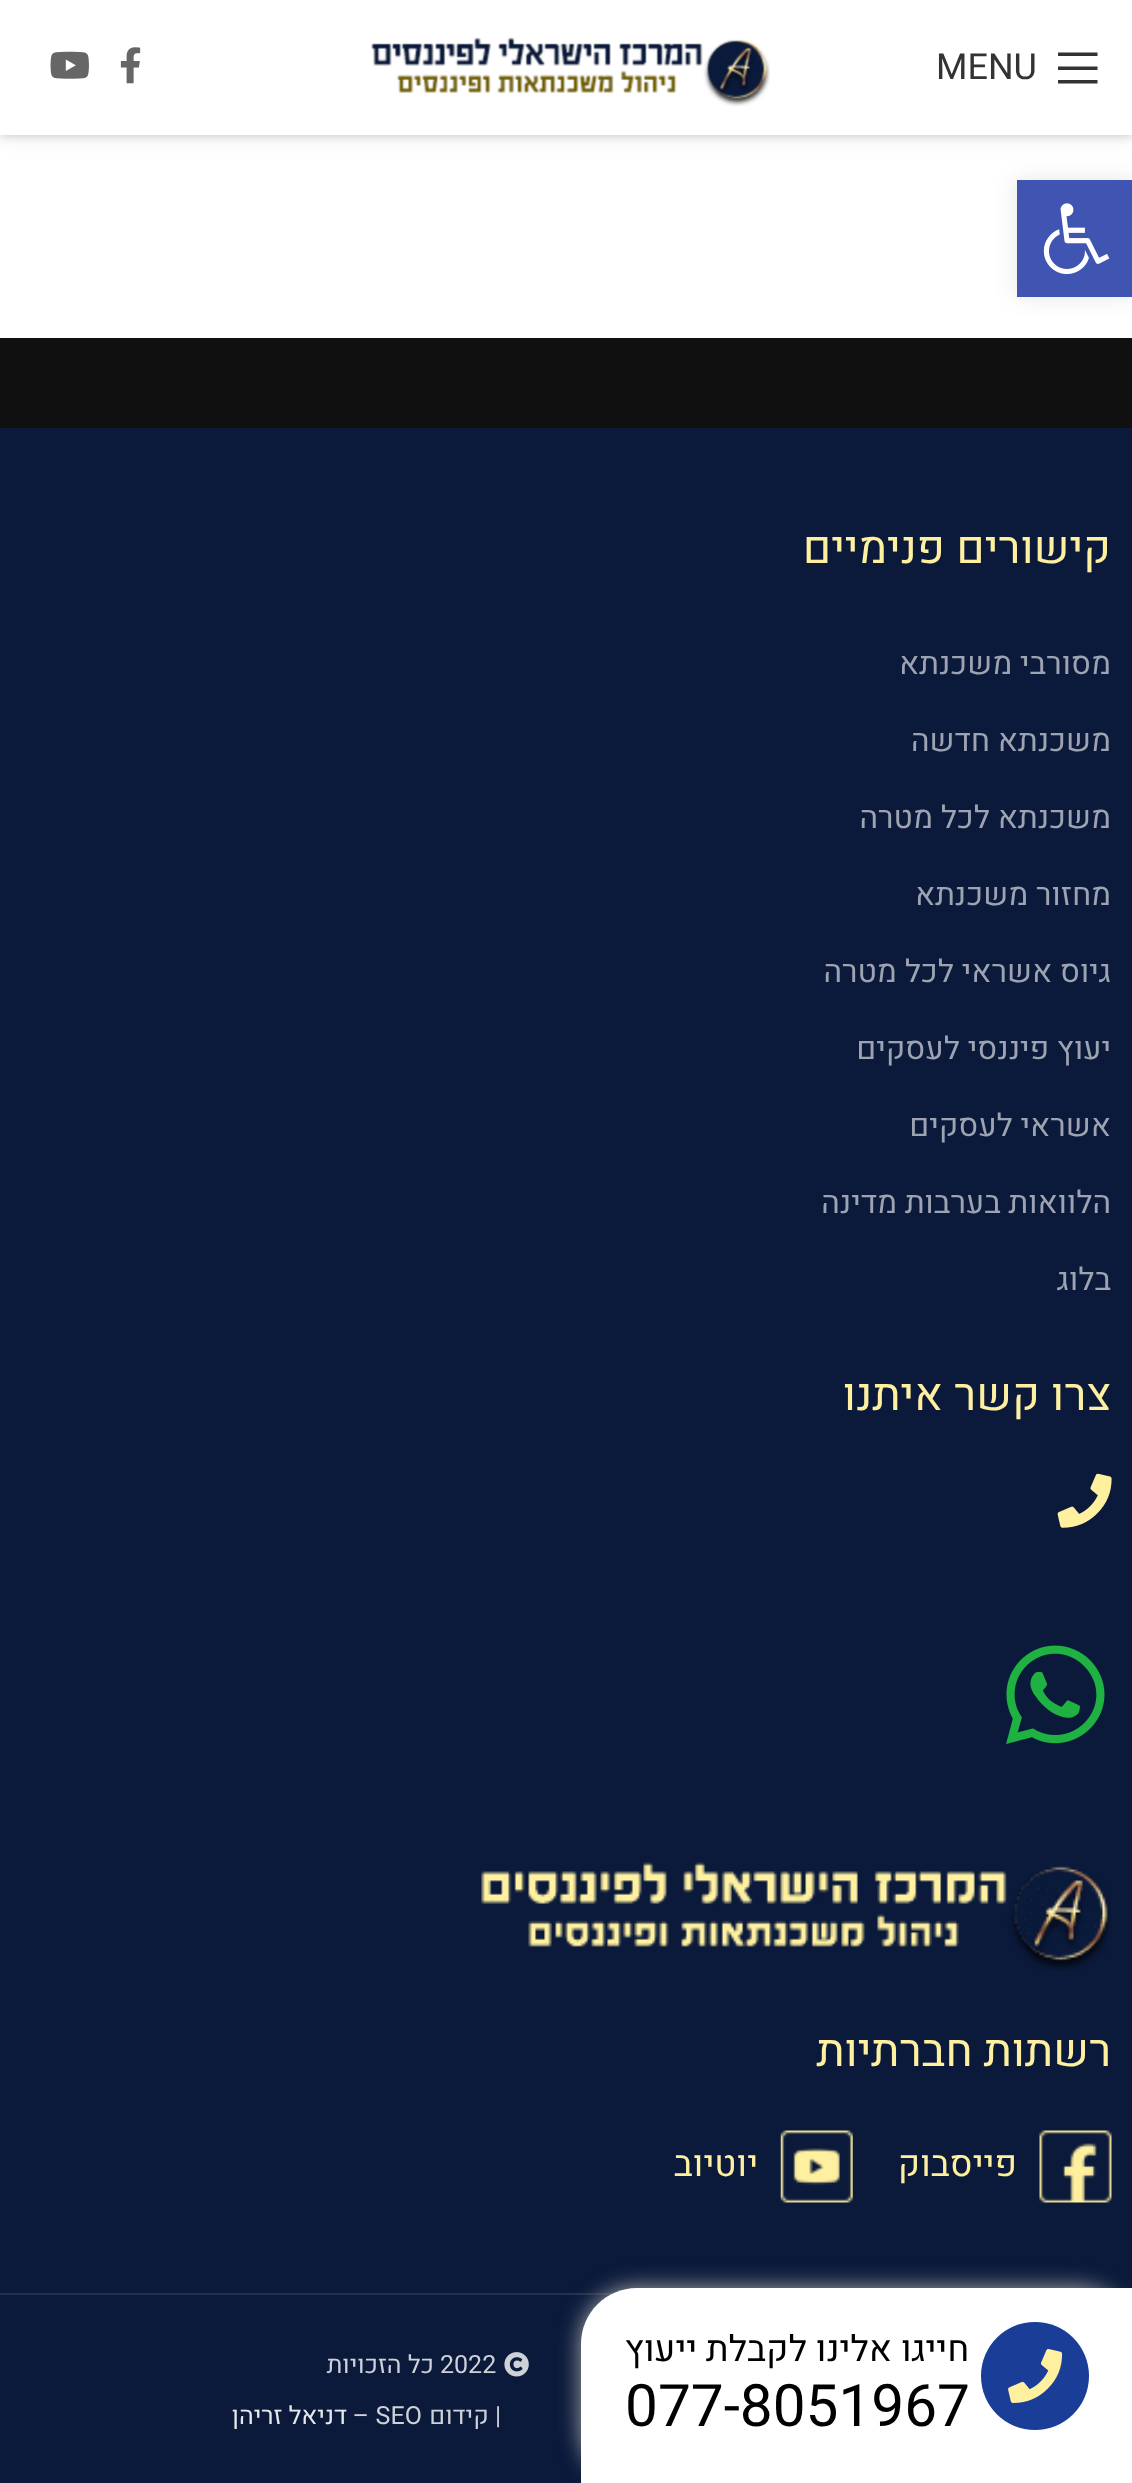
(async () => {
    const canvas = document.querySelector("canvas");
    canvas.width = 1132;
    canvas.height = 2483;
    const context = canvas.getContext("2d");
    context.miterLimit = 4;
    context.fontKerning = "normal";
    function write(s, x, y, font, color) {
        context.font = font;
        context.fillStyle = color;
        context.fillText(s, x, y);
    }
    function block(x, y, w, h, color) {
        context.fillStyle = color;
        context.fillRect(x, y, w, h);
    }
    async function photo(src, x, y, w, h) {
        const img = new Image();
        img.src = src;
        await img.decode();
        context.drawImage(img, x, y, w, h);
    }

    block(0, 0, 1132, 2483, "rgb(255, 255, 255)");
    context.fillStyle = "rgba(0, 0, 0, 0.1)";
    context.filter = "blur(3.5px)";
    context.beginPath();
    context.rect(0, 2, 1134, 135);
    context.fill();
    context.filter = "none";
    context.filter = "blur(9px)";
    context.beginPath();
    context.rect(0, 2, 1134, 135);
    context.fill();
    context.filter = "none";
    block(0, 0, 1132, 135, "rgb(255, 255, 255)");
    context.fillStyle = "rgb(51, 51, 51)";
    context.beginPath();
    context.moveTo(1058, 56);
    context.lineTo(1097.5, 56);
    context.lineTo(1097.5, 52.5);
    context.lineTo(1058, 52.5);
    context.closePath();
    context.moveTo(1058, 70);
    context.lineTo(1097.5, 70);
    context.lineTo(1097.5, 66.5);
    context.lineTo(1058, 66.5);
    context.closePath();
    context.moveTo(1058, 83.5);
    context.lineTo(1097.5, 83.5);
    context.lineTo(1097.5, 80);
    context.lineTo(1058, 80);
    context.closePath();
    context.fill();
    write("MENU", 936, 79, "36px Heebo", "rgb(51, 51, 51)");
    await photo("media/1.png", 370, 37, 400, 70);
    await photo("media/2.png", 120, 47, 21, 37);
    await photo("media/3.png", 50, 51, 39, 28);
    block(0, 338, 1132, 90, "rgb(16, 16, 16)");
    block(0, 428, 1132, 1865, "rgb(11, 26, 59)");
    context.direction = "rtl";
    write("קישורים פנימיים", 1111, 563, "45px Heebo", "rgb(255, 240, 160)");
    write("מסורבי משכנתא", 1111, 674, "31.5px Heebo", "rgb(157, 163, 177)");
    write("משכנתא חדשה", 1111, 751, "31.5px Heebo", "rgb(157, 163, 177)");
    write("משכנתא לכל מטרה", 1111, 828, "31.5px Heebo", "rgb(157, 163, 177)");
    write("מחזור משכנתא", 1111, 905, "31.5px Heebo", "rgb(157, 163, 177)");
    write("גיוס אשראי לכל מטרה", 1111, 982, "31.5px Heebo", "rgb(157, 163, 177)");
    write("יעוץ פיננסי לעסקים", 1111, 1059, "31.5px Heebo", "rgb(157, 163, 177)");
    write("אשראי לעסקים", 1111, 1136, "31.5px Heebo", "rgb(157, 163, 177)");
    write("הלוואות בערבות מדינה", 1111, 1213, "31.5px Heebo", "rgb(157, 163, 177)");
    write("בלוג", 1111, 1290, "31.5px Heebo", "rgb(157, 163, 177)");
    write("צרו קשר איתנו", 1111, 1410, "45px Heebo", "rgb(255, 240, 160)");
    await photo("media/4.png", 1057, 1473, 55, 55);
    await photo("media/5.png", 1006, 1645, 99, 99);
    await photo("media/6.png", 481, 1862, 630, 109);
    write("רשתות חברתיות", 1111, 2066, "45px Heebo", "rgb(255, 240, 160)");
    await photo("media/7.png", 1039, 2130, 73, 73);
    write("פייסבוק", 1017, 2176, "36px Heebo", "rgb(255, 240, 160)");
    await photo("media/8.png", 780, 2130, 73, 73);
    write("יוטיוב", 758, 2176, "36px Heebo", "rgb(255, 240, 160)");
    block(0, 2295, 610, 188, "rgb(11, 26, 59)");
    block(0, 2293, 614, 2, "rgb(35, 49, 79)");
    await photo("media/9.png", 504, 2352, 25, 25);
    context.direction = "ltr";
    write("2022", 440, 2373, "25px Heebo", "rgb(206, 209, 216)");
    context.direction = "rtl";
    write("כל הזכויות", 434, 2373, "25px Heebo", "rgb(206, 209, 216)");
    write("| קידום", 501, 2424, "25px Heebo", "rgb(206, 209, 216)");
    context.direction = "ltr";
    write("– SEO", 353, 2424, "25px Heebo", "rgb(206, 209, 216)");
    context.direction = "rtl";
    write("דניאל זריהן", 347, 2424, "25px Heebo", "rgb(231, 232, 235)");
    context.fillStyle = "rgb(170, 170, 170)";
    context.filter = "blur(11px)";
    context.beginPath();
    context.roundRect(581, 2288, 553, 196, 56);
    context.fill();
    context.filter = "none";
    context.fillStyle = "rgb(255, 255, 255)";
    context.beginPath();
    context.moveTo(637, 2288);
    context.lineTo(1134, 2288);
    context.lineTo(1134, 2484);
    context.lineTo(581, 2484);
    context.lineTo(581, 2344);
    context.bezierCurveTo(581, 2313, 606, 2288, 637, 2288);
    context.closePath();
    context.fill();
    context.fillStyle = "rgb(26, 61, 151)";
    context.beginPath();
    context.arc(1035, 2376, 54, 0, Math.PI * 2);
    context.fill();
    await photo("media/10.png", 1008, 2349, 55, 54);
    write("חייגו אלינו לקבלת ייעוץ", 969, 2361, "36px Heebo", "rgb(0, 0, 0)");
    context.direction = "ltr";
    write("077-8051967", 625, 2426, "58.5px Heebo", "rgb(0, 0, 0)");
    context.fillStyle = "rgba(0, 0, 0, 0.1)";
    context.filter = "blur(11px)";
    context.beginPath();
    context.rect(1017, 180, 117, 117);
    context.fill();
    context.filter = "none";
    block(1017, 180, 115, 117, "rgb(64, 84, 178)");
    await photo("media/11.png", 1043, 203, 67, 72);
})();
